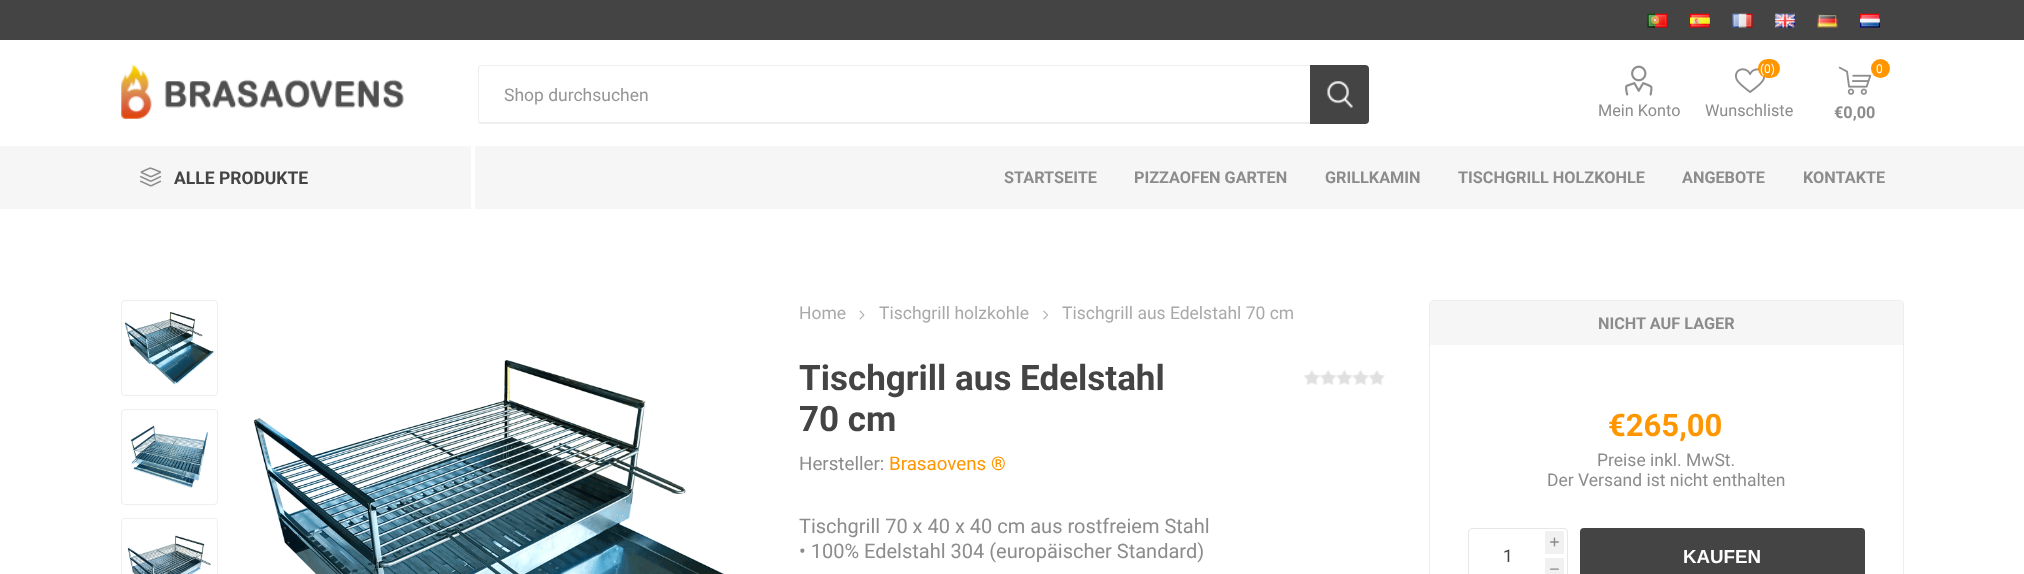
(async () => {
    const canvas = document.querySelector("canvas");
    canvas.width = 2024;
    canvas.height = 574;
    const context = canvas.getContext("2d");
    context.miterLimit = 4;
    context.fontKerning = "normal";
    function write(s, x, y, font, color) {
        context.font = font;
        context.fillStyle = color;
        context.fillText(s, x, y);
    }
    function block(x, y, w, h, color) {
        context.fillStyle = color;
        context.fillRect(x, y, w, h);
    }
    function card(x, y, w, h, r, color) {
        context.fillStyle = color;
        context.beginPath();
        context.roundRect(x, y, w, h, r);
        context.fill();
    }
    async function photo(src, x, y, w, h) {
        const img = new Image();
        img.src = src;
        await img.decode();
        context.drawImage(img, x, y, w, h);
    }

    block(0, 0, 2024, 574, "rgb(255, 255, 255)");
    block(0, 0, 2024, 40, "rgb(68, 68, 68)");
    await photo("media/1.png", 1647, 13, 21, 15);
    await photo("media/2.png", 1690, 13, 20, 15);
    await photo("media/3.png", 1732, 13, 21, 15);
    await photo("media/4.png", 1775, 13, 20, 15);
    await photo("media/5.png", 1817, 13, 21, 15);
    await photo("media/6.png", 1860, 13, 20, 15);
    await photo("media/7.png", 121, 65, 283, 54);
    context.fillStyle = "rgb(238, 238, 238)";
    context.beginPath();
    context.moveTo(481, 65);
    context.lineTo(1310, 65);
    context.lineTo(1310, 124);
    context.lineTo(481, 124);
    context.bezierCurveTo(479, 124, 478, 122, 478, 120);
    context.lineTo(478, 69);
    context.bezierCurveTo(478, 67, 479, 65, 481, 65);
    context.closePath();
    context.moveTo(481, 66);
    context.lineTo(1310, 66);
    context.lineTo(1310, 122);
    context.lineTo(481, 122);
    context.bezierCurveTo(480, 122, 479, 121, 479, 120);
    context.lineTo(479, 69);
    context.bezierCurveTo(479, 67, 480, 66, 481, 66);
    context.closePath();
    context.fill("evenodd");
    write("Shop durchsuchen", 504, 101, "17.5px Roboto", "rgb(149, 149, 149)");
    context.fillStyle = "rgb(68, 68, 68)";
    context.beginPath();
    context.roundRect(1310, 65, 59, 59, [0, 4, 4, 0]);
    context.fill();
    await photo("media/8.png", 1327, 81, 26, 27);
    await photo("media/9.png", 1625, 65, 28, 31);
    write("Mein Konto", 1598, 116, "16.25px Roboto", "rgb(140, 140, 140)");
    await photo("media/10.png", 1735, 68, 30, 25);
    card(1758, 59, 22, 19, 9.5, "rgb(255, 150, 0)");
    write("(0)", 1760, 73, "12px Roboto", "rgb(255, 255, 255)");
    write("Wunschliste", 1705, 116, "16.25px Roboto", "rgb(140, 140, 140)");
    await photo("media/11.png", 1838, 66, 34, 29);
    context.fillStyle = "rgb(255, 150, 0)";
    context.beginPath();
    context.arc(1880.5, 68.5, 9.5, 0, Math.PI * 2);
    context.fill();
    write("0", 1876, 73, "12px Roboto", "rgb(255, 255, 255)");
    write("€0,00", 1834, 118, "bold 16.25px Roboto", "rgb(140, 140, 140)");
    block(0, 146, 2024, 63, "rgb(246, 246, 246)");
    block(471, 146, 4, 63, "rgb(255, 255, 255)");
    await photo("media/12.png", 140, 167, 22, 20);
    write("ALLE PRODUKTE", 174, 184, "bold 17.5px Roboto", "rgb(68, 68, 68)");
    write("STARTSEITE", 1004, 183, "bold 16.25px Roboto", "rgb(140, 140, 140)");
    write("PIZZAOFEN GARTEN", 1134, 183, "bold 16.25px Roboto", "rgb(140, 140, 140)");
    write("GRILLKAMIN", 1325, 183, "bold 16.25px Roboto", "rgb(140, 140, 140)");
    write("TISCHGRILL HOLZKOHLE", 1458, 183, "bold 16.25px Roboto", "rgb(140, 140, 140)");
    write("ANGEBOTE", 1682, 183, "bold 16.25px Roboto", "rgb(140, 140, 140)");
    write("KONTAKTE", 1803, 183, "bold 16.25px Roboto", "rgb(140, 140, 140)");
    context.beginPath();
    context.roundRect(121.5, 300.5, 96, 95, 3.5);
    context.strokeStyle = "rgb(238, 238, 238)";
    context.stroke();
    await photo("media/13.png", 123, 312, 91, 83);
    context.beginPath();
    context.roundRect(121.5, 409.5, 96, 95, 3.5);
    context.stroke();
    await photo("media/14.png", 130, 425, 78, 63);
    context.beginPath();
    context.roundRect(121.5, 518.5, 96, 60, 3.5);
    context.stroke();
    await photo("media/15.png", 123, 519, 93, 55);
    await photo("media/16.png", 253, 359, 471, 215);
    write("Home", 799, 319, "17.5px Roboto", "rgb(169, 169, 169)");
    await photo("media/17.png", 859, 310, 6, 10);
    write("Tischgrill holzkohle", 879, 319, "17.5px Roboto", "rgb(169, 169, 169)");
    await photo("media/18.png", 1043, 310, 5, 10);
    write("Tischgrill aus Edelstahl 70 cm", 1062, 319, "17.5px Roboto", "rgb(169, 169, 169)");
    write("Tischgrill aus Edelstahl", 799, 390, "bold 35px Roboto", "rgb(68, 68, 68)");
    write("70 cm", 799, 431, "bold 35px Roboto", "rgb(68, 68, 68)");
    write("Hersteller:", 799, 470, "18.75px Roboto", "rgb(140, 140, 140)");
    write("Brasaovens ®", 889, 470, "18.75px Roboto", "rgb(255, 150, 0)");
    await photo("media/19.png", 1304, 370, 81, 15);
    context.beginPath();
    context.roundRect(1429.5, 300.5, 474, 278, 3.5);
    context.stroke();
    context.fillStyle = "rgb(246, 246, 246)";
    context.beginPath();
    context.roundRect(1430, 301, 473, 44, [4, 4, 0, 0]);
    context.fill();
    write("NICHT AUF LAGER", 1598, 329, "bold 16.25px Roboto", "rgb(140, 140, 140)");
    write("€265,00", 1608, 436, "bold 31px Roboto", "rgb(255, 150, 0)");
    write("Preise inkl. MwSt.", 1597, 466, "17.5px Roboto", "rgb(140, 140, 140)");
    write("Der Versand ist nicht enthalten", 1547, 486, "17.5px Roboto", "rgb(140, 140, 140)");
    context.beginPath();
    context.roundRect(1468.5, 528.5, 99, 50, 3.5);
    context.strokeStyle = "rgb(231, 231, 231)";
    context.stroke();
    block(1545, 531, 19, 23, "rgb(241, 241, 241)");
    write("i", 1550, 546, "9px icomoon", "rgb(140, 140, 140)");
    write("1", 1503, 562, "17.5px Roboto", "rgb(68, 68, 68)");
    block(1545, 558, 19, 16, "rgb(241, 241, 241)");
    write("h", 1550, 573, "9px icomoon", "rgb(140, 140, 140)");
    card(1580, 528, 285, 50, 4, "rgb(68, 68, 68)");
    write("KAUFEN", 1683, 563, "bold 18.75px Liberation Sans", "rgb(255, 255, 255)");
    write("Tischgrill 70 x 40 x 40 cm aus rostfreiem Stahl", 799, 533, "20px Roboto", "rgb(140, 140, 140)");
    write("• 100% Edelstahl 304 (europäischer Standard)", 799, 558, "20px Roboto", "rgb(140, 140, 140)");
})();
